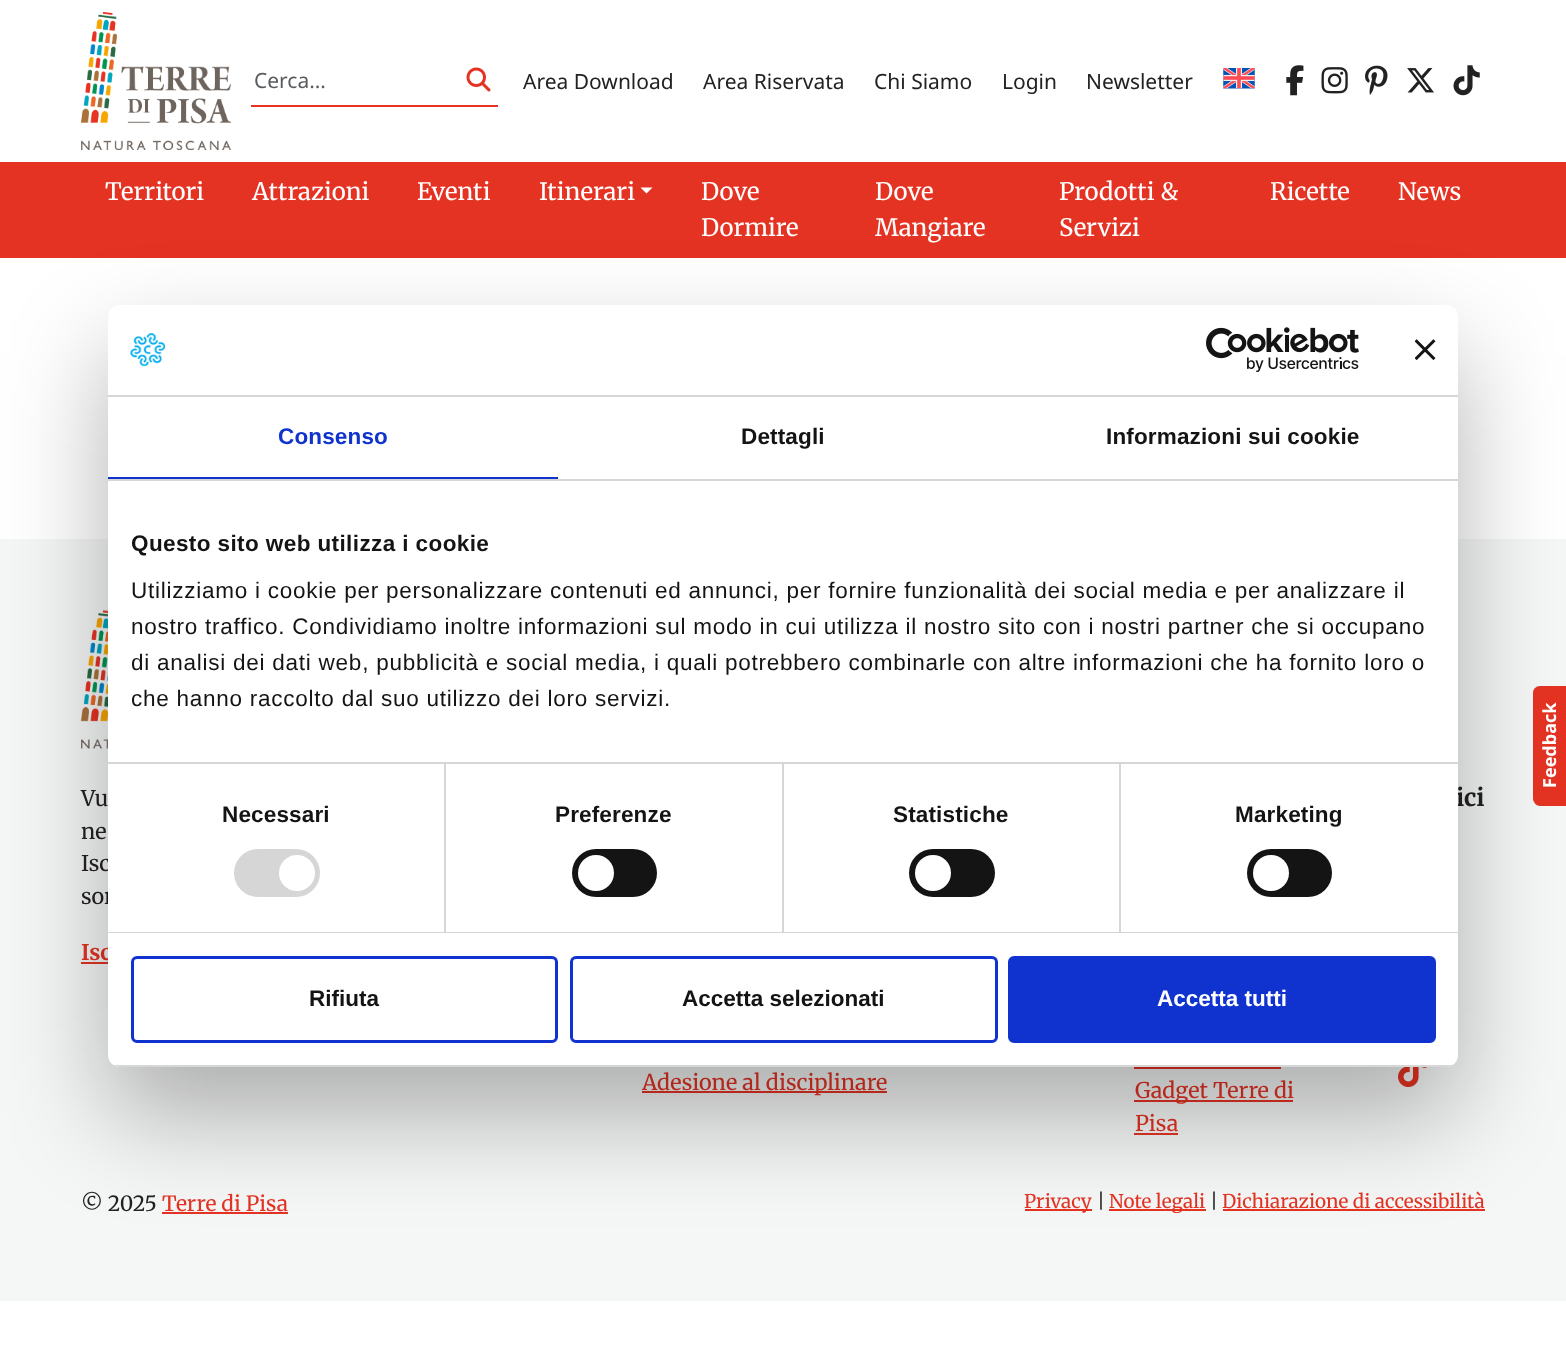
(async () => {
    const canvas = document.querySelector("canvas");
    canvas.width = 1566;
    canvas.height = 1370;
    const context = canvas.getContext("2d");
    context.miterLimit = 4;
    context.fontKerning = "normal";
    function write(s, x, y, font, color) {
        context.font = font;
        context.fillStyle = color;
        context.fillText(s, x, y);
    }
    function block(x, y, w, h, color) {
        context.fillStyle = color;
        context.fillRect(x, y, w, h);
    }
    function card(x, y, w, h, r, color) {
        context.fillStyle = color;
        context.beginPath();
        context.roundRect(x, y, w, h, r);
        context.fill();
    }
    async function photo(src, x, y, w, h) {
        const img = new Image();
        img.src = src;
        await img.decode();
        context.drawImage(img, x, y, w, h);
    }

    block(0, 0, 1566, 1370, "rgb(255, 255, 255)");
    await photo("media/1.png", 81, 12, 150, 138);
    block(251, 105, 247, 2, "rgb(229, 51, 35)");
    write("Cerca…", 254, 88, "21px Noto Sans", "rgb(89, 92, 95)");
    await photo("media/2.png", 466, 67, 25, 25);
    write("Area Download", 523, 89, "21px Noto Sans", "rgb(34, 34, 34)");
    write("Area Riservata", 703, 89, "21px Noto Sans", "rgb(34, 34, 34)");
    write("Chi Siamo", 874, 89, "21px Noto Sans", "rgb(34, 34, 34)");
    write("Login", 1002, 89, "21px Noto Sans", "rgb(34, 34, 34)");
    write("Newsletter", 1086, 89, "21px Noto Sans", "rgb(34, 34, 34)");
    await photo("media/3.png", 1223, 68, 32, 21);
    await photo("media/4.png", 1286, 65, 18, 31);
    await photo("media/5.png", 1321, 67, 27, 27);
    await photo("media/6.png", 1365, 65, 23, 30);
    await photo("media/7.png", 1407, 68, 27, 25);
    await photo("media/8.png", 1453, 65, 27, 31);
    block(0, 162, 1566, 96, "rgb(229, 51, 35)");
    write("Territori", 105, 200, "24px Merriweather", "rgb(255, 255, 255)");
    write("Attrazioni", 252, 200, "24px Merriweather", "rgb(255, 255, 255)");
    write("Eventi", 417, 200, "24px Merriweather", "rgb(255, 255, 255)");
    write("Itinerari", 539, 200, "24px Merriweather", "rgb(255, 255, 255)");
    context.beginPath();
    context.moveTo(640.5, 187.5);
    context.lineTo(652.5, 187.5);
    context.lineTo(646.5, 193.5);
    context.closePath();
    context.fill();
    write("Dove", 701, 200, "24px Merriweather", "rgb(255, 255, 255)");
    write("Dormire", 701, 236, "24px Merriweather", "rgb(255, 255, 255)");
    write("Dove", 875, 200, "24px Merriweather", "rgb(255, 255, 255)");
    write("Mangiare", 875, 236, "24px Merriweather", "rgb(255, 255, 255)");
    write("Prodotti &", 1059, 200, "24px Merriweather", "rgb(255, 255, 255)");
    write("Servizi", 1059, 236, "24px Merriweather", "rgb(255, 255, 255)");
    write("Ricette", 1270, 200, "24px Merriweather", "rgb(255, 255, 255)");
    write("News", 1398, 200, "24px Merriweather", "rgb(255, 255, 255)");
    block(0, 539, 1566, 762, "rgb(245, 246, 246)");
    await photo("media/9.png", 81, 610, 27, 139);
    write("Vu", 81, 806, "21.6px Merriweather", "rgb(34, 34, 34)");
    write("ne", 81, 839, "21.6px Merriweather", "rgb(34, 34, 34)");
    write("Isc", 81, 871, "21.6px Merriweather", "rgb(34, 34, 34)");
    write("sor", 81, 904, "21.6px Merriweather", "rgb(34, 34, 34)");
    write("Isc", 81, 960, "bold 21.6px Merriweather", "rgb(229, 51, 35)");
    block(81, 962, 27, 2, "rgb(229, 51, 35)");
    write("ici", 1456, 806, "bold 24px Merriweather", "rgb(34, 34, 34)");
    await photo("media/10.png", 1398, 1067, 29, 20);
    block(642, 1091, 245, 2, "rgb(229, 51, 35)");
    write("Adesione al disciplinare", 642, 1090, "21.6px Merriweather", "rgb(229, 51, 35)");
    block(1134, 1067, 147, 2, "rgb(229, 51, 35)");
    block(1134, 1100, 159, 2, "rgb(229, 51, 35)");
    write("Gadget Terre di", 1135, 1098, "21.6px Merriweather", "rgb(229, 51, 35)");
    write("Pisa", 1135, 1131, "21.6px Merriweather", "rgb(229, 51, 35)");
    block(1134, 1133, 44, 2, "rgb(229, 51, 35)");
    write("© 2025", 81, 1211, "21px Merriweather", "rgb(34, 34, 34)");
    write("Terre di Pisa", 162, 1211, "21px Merriweather", "rgb(229, 51, 35)");
    block(162, 1212, 126, 2, "rgb(229, 51, 35)");
    block(1025, 1209, 67, 2, "rgb(229, 51, 35)");
    write("Privacy", 1024, 1208, "18.9px Merriweather", "rgb(229, 51, 35)");
    write("|", 1097, 1208, "18.9px Merriweather", "rgb(34, 34, 34)");
    block(1109, 1209, 97, 2, "rgb(229, 51, 35)");
    write("Note legali", 1109, 1208, "18.9px Merriweather", "rgb(229, 51, 35)");
    write("|", 1210, 1208, "18.9px Merriweather", "rgb(34, 34, 34)");
    write("Dichiarazione di accessibilità", 1222, 1208, "18.9px Merriweather", "rgb(229, 51, 35)");
    block(1223, 1209, 262, 2, "rgb(229, 51, 35)");
    context.beginPath();
    context.moveTo(1533, 798);
    context.lineTo(1533, 693);
    context.bezierCurveTo(1533, 689, 1536, 686, 1540, 686);
    context.lineTo(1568, 686);
    context.lineTo(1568, 806);
    context.lineTo(1540, 806);
    context.bezierCurveTo(1536, 806, 1533, 802, 1533, 798);
    context.closePath();
    context.fill();
    context.fillStyle = "rgba(0, 0, 0, 0.3)";
    context.filter = "blur(51px)";
    context.beginPath();
    context.roundRect(108, 353, 1350, 762, 12);
    context.fill();
    context.filter = "none";
    card(108, 305, 1350, 762, 12, "rgb(255, 255, 255)");
    block(108, 395, 1350, 2, "rgb(214, 214, 214)");
    await photo("media/11.png", 130, 333, 35, 34);
    await photo("media/12.png", 1206, 327, 153, 45);
    await photo("media/13.png", 1415, 339, 21, 21);
    block(108, 479, 1350, 2, "rgb(214, 214, 214)");
    block(108, 477, 450, 2, "rgb(16, 50, 207)");
    context.letterSpacing = "0.15px";
    write("Consenso", 278, 444, "bold 22.5px Liberation Sans", "rgb(16, 50, 207)");
    write("Dettagli", 741, 444, "bold 22.5px Liberation Sans", "rgb(20, 20, 20)");
    write("Informazioni sui cookie", 1106, 444, "bold 22.5px Liberation Sans", "rgb(20, 20, 20)");
    block(108, 762, 1350, 2, "rgb(214, 214, 214)");
    context.letterSpacing = "0.4px";
    write("Questo sito web utilizza i cookie", 131, 551, "bold 22.5px Liberation Sans", "rgb(20, 20, 20)");
    context.letterSpacing = "0.75px";
    write("Utilizziamo i cookie per personalizzare contenuti ed annunci, per fornire funzionalità dei social media e per analizzare il", 131, 598, "22.5px Liberation Sans", "rgb(20, 20, 20)");
    write("nostro traffico. Condividiamo inoltre informazioni sul modo in cui utilizza il nostro sito con i nostri partner che si occupano", 131, 634, "22.5px Liberation Sans", "rgb(20, 20, 20)");
    write("di analisi dei dati web, pubblicità e social media, i quali potrebbero combinarle con altre informazioni che ha fornito loro o", 131, 670, "22.5px Liberation Sans", "rgb(20, 20, 20)");
    write("che hanno raccolto dal suo utilizzo dei loro servizi.", 131, 706, "22.5px Liberation Sans", "rgb(20, 20, 20)");
    block(108, 932, 1350, 1, "rgb(214, 214, 214)");
    block(444, 764, 2, 168, "rgb(214, 214, 214)");
    context.letterSpacing = "0.15px";
    write("Necessari", 222, 822, "bold 22.5px Liberation Sans", "rgb(20, 20, 20)");
    card(234, 849, 86, 48, 24, "rgb(214, 214, 214)");
    context.fillStyle = "rgb(255, 255, 255)";
    context.beginPath();
    context.arc(297, 873, 18, 0, Math.PI * 2);
    context.fill();
    block(782, 764, 2, 168, "rgb(214, 214, 214)");
    write("Preferenze", 555, 822, "bold 22.5px Liberation Sans", "rgb(20, 20, 20)");
    card(572, 849, 85, 48, 24, "rgb(20, 20, 20)");
    context.fillStyle = "rgb(255, 255, 255)";
    context.beginPath();
    context.arc(596, 873, 18, 0, Math.PI * 2);
    context.fill();
    block(1119, 764, 2, 168, "rgb(214, 214, 214)");
    write("Statistiche", 893, 822, "bold 22.5px Liberation Sans", "rgb(20, 20, 20)");
    card(909, 849, 86, 48, 24, "rgb(20, 20, 20)");
    context.fillStyle = "rgb(255, 255, 255)";
    context.beginPath();
    context.arc(933, 873, 18, 0, Math.PI * 2);
    context.fill();
    write("Marketing", 1235, 822, "bold 22.5px Liberation Sans", "rgb(20, 20, 20)");
    card(1247, 849, 85, 48, 24, "rgb(20, 20, 20)");
    context.fillStyle = "rgb(255, 255, 255)";
    context.beginPath();
    context.arc(1271, 873, 18, 0, Math.PI * 2);
    context.fill();
    context.save();
    context.beginPath();
    context.roundRect(108, 305, 1350, 762, 12);
    context.clip();
    block(108, 1065, 1350, 2, "rgb(214, 214, 214)");
    context.restore();
    context.beginPath();
    context.roundRect(132.5, 957.5, 424, 84, 4.5);
    context.strokeStyle = "rgb(16, 50, 207)";
    context.lineWidth = 3;
    context.stroke();
    context.letterSpacing = "0px";
    write("Rifiuta", 309, 1006, "bold 22.5px Liberation Sans", "rgb(20, 20, 20)");
    context.beginPath();
    context.roundRect(571.5, 957.5, 425, 84, 4.5);
    context.stroke();
    write("Accetta selezionati", 682, 1006, "bold 22.5px Liberation Sans", "rgb(20, 20, 20)");
    context.fillStyle = "rgb(16, 50, 207)";
    context.beginPath();
    context.roundRect(1009.5, 957.5, 425, 84, 4.5);
    context.fill();
    context.stroke();
    write("Accetta tutti", 1157, 1006, "bold 22.5px Liberation Sans", "rgb(255, 255, 255)");
    context.font = "bold 18px Noto Sans";
    context.save();
    context.translate(1556, 788);
    context.rotate(-90 * Math.PI / 180);
    context.fillText("Feedback", 0, 0);
    context.restore();
})();
